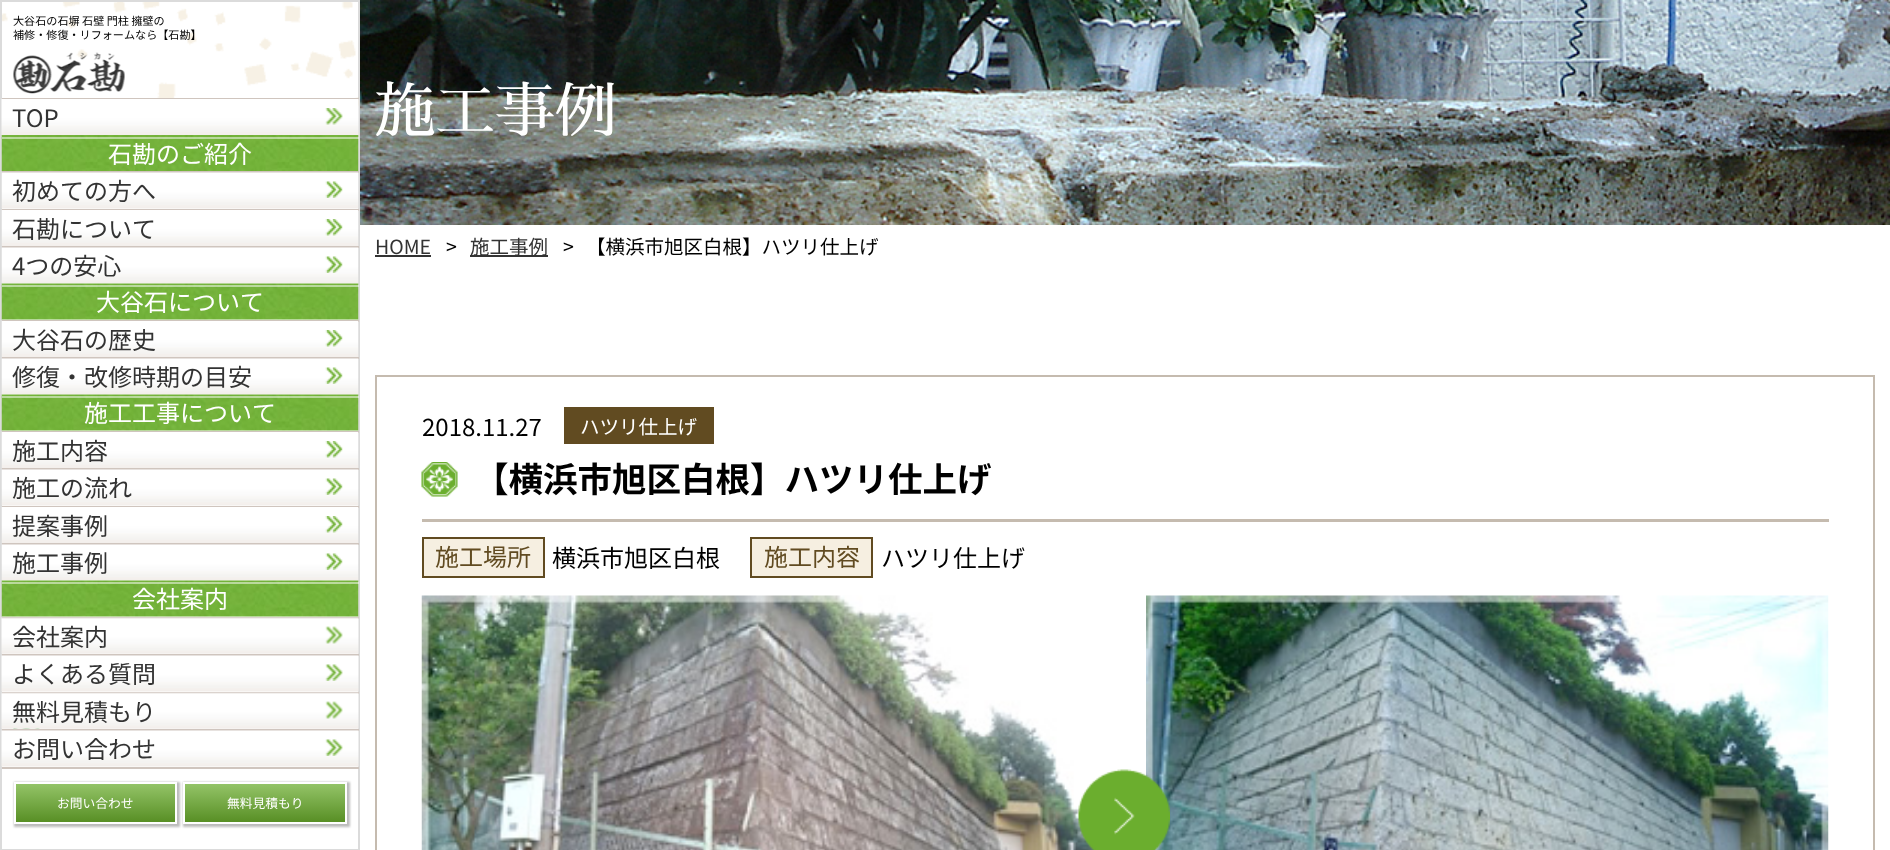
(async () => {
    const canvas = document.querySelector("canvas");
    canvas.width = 1890;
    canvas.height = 850;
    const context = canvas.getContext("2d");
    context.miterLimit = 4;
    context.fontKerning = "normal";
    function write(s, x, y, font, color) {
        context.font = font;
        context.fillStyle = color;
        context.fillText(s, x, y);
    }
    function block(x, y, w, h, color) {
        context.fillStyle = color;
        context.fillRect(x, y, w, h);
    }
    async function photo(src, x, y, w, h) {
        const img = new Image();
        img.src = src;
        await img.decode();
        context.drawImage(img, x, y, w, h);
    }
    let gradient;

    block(0, 0, 1890, 850, "rgb(255, 255, 255)");
    context.strokeStyle = "rgb(219, 219, 219)";
    context.lineWidth = 2;
    context.strokeRect(1, 1, 358, 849);
    await photo("media/1.png", 2, 2, 357, 105);
    write("大谷石の石塀 石壁 門柱 擁壁の", 13, 25, "11.1px Noto Sans JP", "rgb(0, 0, 0)");
    write("補修・修復・リフォームなら【石勘】", 13, 39, "11.1px Noto Sans JP", "rgb(0, 0, 0)");
    await photo("media/2.png", 13, 52, 112, 42);
    block(2, 98, 357, 2, "rgb(207, 197, 190)");
    await photo("media/3.png", 1, 99, 358, 36);
    write("TOP", 12, 127, "24px Noto Sans JP", "rgb(51, 51, 51)");
    await photo("media/4.png", 1, 135, 358, 36);
    block(2, 137, 357, 2, "rgba(255, 255, 255, 0.5)");
    write("石勘のご紹介", 108, 163, "24px Noto Sans JP", "rgb(255, 255, 255)");
    block(2, 171, 357, 2, "rgb(207, 197, 190)");
    await photo("media/5.png", 1, 172, 358, 37);
    write("初めての方へ", 12, 200, "24px Noto Sans JP", "rgb(51, 51, 51)");
    block(2, 209, 357, 2, "rgb(207, 197, 190)");
    await photo("media/6.png", 1, 210, 358, 36);
    write("石勘について", 12, 238, "24px Noto Sans JP", "rgb(51, 51, 51)");
    block(2, 246, 357, 2, "rgb(207, 197, 190)");
    await photo("media/5.png", 1, 247, 358, 37);
    write("4つの安心", 12, 275, "24px Noto Sans JP", "rgb(51, 51, 51)");
    await photo("media/7.png", 1, 283, 358, 37);
    block(2, 285, 357, 2, "rgba(255, 255, 255, 0.5)");
    write("大谷石について", 96, 311, "24px Noto Sans JP", "rgb(255, 255, 255)");
    block(2, 320, 357, 2, "rgb(207, 197, 190)");
    await photo("media/6.png", 1, 321, 358, 36);
    write("大谷石の歴史", 12, 349, "24px Noto Sans JP", "rgb(51, 51, 51)");
    block(2, 357, 357, 2, "rgb(207, 197, 190)");
    await photo("media/5.png", 1, 358, 358, 37);
    write("修復・改修時期の目安", 12, 386, "24px Noto Sans JP", "rgb(51, 51, 51)");
    await photo("media/7.png", 1, 394, 358, 37);
    block(2, 396, 357, 2, "rgba(255, 255, 255, 0.5)");
    write("施工工事について", 84, 422, "24px Noto Sans JP", "rgb(255, 255, 255)");
    block(2, 431, 357, 2, "rgb(207, 197, 190)");
    await photo("media/6.png", 1, 432, 358, 36);
    write("施工内容", 12, 460, "24px Noto Sans JP", "rgb(51, 51, 51)");
    block(2, 468, 357, 2, "rgb(207, 197, 190)");
    await photo("media/5.png", 1, 469, 358, 37);
    write("施工の流れ", 12, 497, "24px Noto Sans JP", "rgb(51, 51, 51)");
    block(2, 506, 357, 2, "rgb(207, 197, 190)");
    await photo("media/6.png", 1, 507, 358, 36);
    write("提案事例", 12, 535, "24px Noto Sans JP", "rgb(51, 51, 51)");
    block(2, 543, 357, 2, "rgb(207, 197, 190)");
    await photo("media/5.png", 1, 544, 358, 37);
    write("施工事例", 12, 572, "24px Noto Sans JP", "rgb(51, 51, 51)");
    await photo("media/7.png", 1, 580, 358, 37);
    block(2, 582, 357, 2, "rgba(255, 255, 255, 0.5)");
    write("会社案内", 132, 608, "24px Noto Sans JP", "rgb(255, 255, 255)");
    block(2, 617, 357, 2, "rgb(207, 197, 190)");
    await photo("media/8.png", 1, 617, 358, 38);
    write("会社案内", 12, 646, "24px Noto Sans JP", "rgb(51, 51, 51)");
    block(2, 654, 357, 2, "rgb(207, 197, 190)");
    await photo("media/9.png", 1, 655, 358, 37);
    write("よくある質問", 12, 683, "24px Noto Sans JP", "rgb(51, 51, 51)");
    block(2, 692, 357, 2, "rgb(207, 197, 190)");
    await photo("media/12.png", 13, 728, 27, 1);
    await photo("media/10.png", 1, 692, 358, 38);
    write("無料見積もり", 12, 721, "24px Noto Sans JP", "rgb(51, 51, 51)");
    block(2, 729, 357, 2, "rgb(207, 197, 190)");
    block(2, 767, 357, 2, "rgb(207, 197, 190)");
    await photo("media/11.png", 1, 730, 358, 37);
    write("お問い合わせ", 12, 758, "24px Noto Sans JP", "rgb(51, 51, 51)");
    context.fillStyle = "rgba(33, 33, 33, 0.3)";
    context.filter = "blur(1px)";
    context.beginPath();
    context.rect(14, 782, 166, 45);
    context.fill();
    context.filter = "none";
    gradient = context.createLinearGradient(95, 783, 95, 822);
    gradient.addColorStop(0, "rgb(149, 197, 105)");
    gradient.addColorStop(1, "rgb(88, 143, 37)");
    context.fillStyle = gradient;
    context.fillRect(16, 784, 159, 38);
    context.strokeStyle = "rgb(255, 255, 255)";
    context.strokeRect(15, 783, 161, 40);
    write("お問い合わせ", 57, 808, "12.75px Noto Sans JP", "rgb(255, 255, 255)");
    context.fillStyle = "rgba(33, 33, 33, 0.3)";
    context.filter = "blur(1px)";
    context.beginPath();
    context.rect(183, 782, 167, 45);
    context.fill();
    context.filter = "none";
    gradient = context.createLinearGradient(265, 783, 265, 822);
    gradient.addColorStop(0, "rgb(149, 197, 105)");
    gradient.addColorStop(1, "rgb(88, 143, 37)");
    context.fillStyle = gradient;
    context.fillRect(185, 784, 160, 38);
    context.strokeRect(184, 783, 162, 40);
    write("無料見積もり", 227, 808, "12.75px Noto Sans JP", "rgb(255, 255, 255)");
    await photo("media/13.png", 360, 0, 1530, 225);
    write("施工事例", 375, 132, "60px Sawarabi Mincho", "rgb(255, 255, 255)");
    write("HOME", 375, 254, "19.5px Noto Sans JP", "rgb(51, 51, 51)");
    block(375, 255, 56, 2, "rgb(51, 51, 51)");
    write(">", 446, 254, "19.5px Noto Sans JP", "rgb(0, 0, 0)");
    block(470, 255, 78, 2, "rgb(51, 51, 51)");
    write("施工事例", 470, 254, "19.5px Noto Sans JP", "rgb(51, 51, 51)");
    write(">", 563, 254, "19.5px Noto Sans JP", "rgb(0, 0, 0)");
    write("【横浜市旭区白根】ハツリ仕上げ", 586, 254, "19.5px Noto Sans JP", "rgb(0, 0, 0)");
    context.strokeStyle = "rgb(197, 187, 175)";
    context.strokeRect(376, 376, 1498, 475);
    write("2018.11.27", 422, 436, "24px Noto Sans JP", "rgb(0, 0, 0)");
    block(564, 407, 150, 37, "rgb(97, 75, 33)");
    write("ハツリ仕上げ", 580, 434, "19.5px Noto Sans JP", "rgb(255, 255, 255)");
    await photo("media/14.png", 421, 462, 37, 35);
    block(422, 519, 1407, 3, "rgb(197, 187, 175)");
    write("【横浜市旭区白根】ハツリ仕上げ", 474, 492, "bold 34.5px Noto Sans JP", "rgb(0, 0, 0)");
    context.fillStyle = "rgb(246, 239, 225)";
    context.beginPath();
    context.rect(423, 538, 121, 39);
    context.fill();
    context.strokeStyle = "rgb(97, 75, 33)";
    context.stroke();
    write("施工場所", 435, 566, "24px Noto Sans JP", "rgb(97, 75, 33)");
    write("横浜市旭区白根", 552, 567, "24px Noto Sans JP", "rgb(0, 0, 0)");
    context.fillStyle = "rgb(246, 239, 225)";
    context.beginPath();
    context.rect(751, 538, 121, 39);
    context.fill();
    context.stroke();
    write("施工内容", 764, 566, "24px Noto Sans JP", "rgb(97, 75, 33)");
    write("ハツリ仕上げ", 881, 567, "24px Noto Sans JP", "rgb(0, 0, 0)");
    await photo("media/15.png", 421, 595, 683, 255);
    await photo("media/17.png", 1146, 595, 683, 255);
    await photo("media/16.png", 1078, 769, 92, 81);
})();
